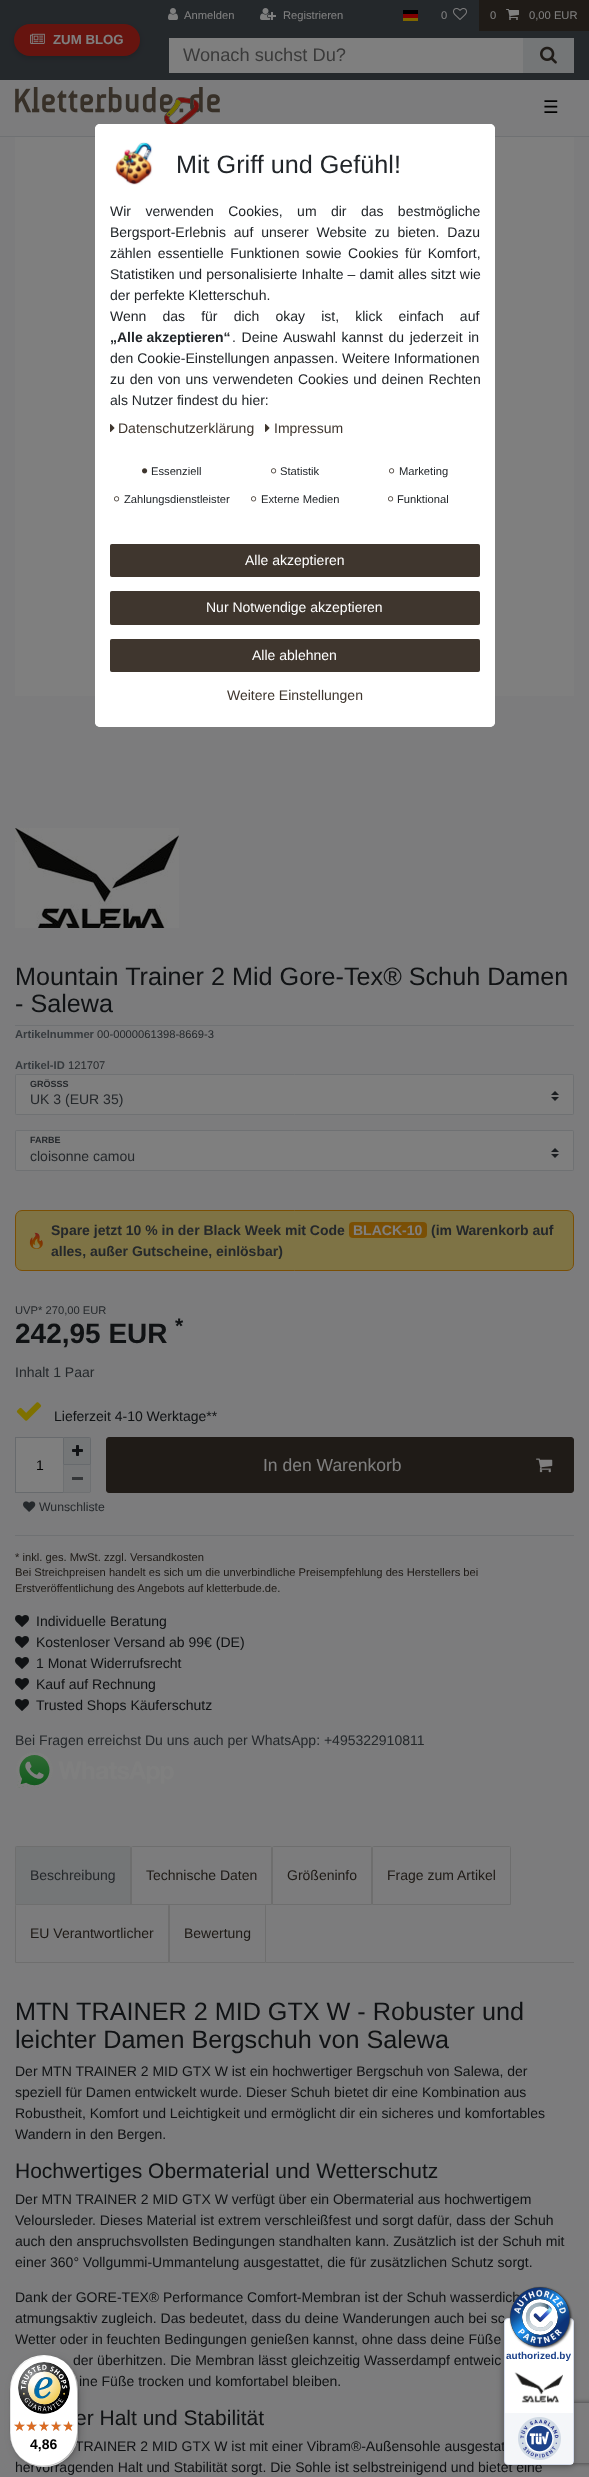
(async () => {
    const canvas = document.querySelector("canvas");
    canvas.width = 589;
    canvas.height = 2477;
    const context = canvas.getContext("2d");
    context.miterLimit = 4;
    context.fontKerning = "normal";
    function write(s, x, y, font, color) {
        context.font = font;
        context.fillStyle = color;
        context.fillText(s, x, y);
    }
    function block(x, y, w, h, color) {
        context.fillStyle = color;
        context.fillRect(x, y, w, h);
    }
    function card(x, y, w, h, r, color) {
        context.fillStyle = color;
        context.beginPath();
        context.roundRect(x, y, w, h, r);
        context.fill();
    }
    async function photo(src, x, y, w, h) {
        const img = new Image();
        img.src = src;
        await img.decode();
        context.drawImage(img, x, y, w, h);
    }

    block(0, 0, 589, 2477, "rgb(248, 249, 250)");
    block(0, 0, 589, 80, "rgb(73, 80, 87)");
    context.fillStyle = "rgba(0, 0, 0, 0.15)";
    context.filter = "blur(2.5px)";
    context.beginPath();
    context.roundRect(14, 26, 126, 32, 16);
    context.fill();
    context.filter = "none";
    card(14, 24, 126, 32, 16, "rgb(204, 41, 30)");
    await photo("media/1.png", 30, 33, 15, 11);
    write("ZUM BLOG", 53, 44, "bold 13.25px Liberation Sans", "rgb(255, 255, 255)");
    await photo("media/2.png", 168, 8, 10, 12);
    write("Anmelden", 184, 19, "11.2px Liberation Sans", "rgb(255, 255, 255)");
    await photo("media/3.png", 260, 8, 16, 12);
    write("Registrieren", 283, 19, "11.2px Liberation Sans", "rgb(255, 255, 255)");
    block(403, 18, 15, 3, "rgb(255, 204, 0)");
    block(403, 10, 15, 4, "rgb(0, 0, 0)");
    block(403, 14, 15, 4, "rgb(255, 0, 0)");
    write("0", 441, 19, "11.2px Liberation Sans", "rgb(255, 255, 255)");
    await photo("media/4.png", 453, 8, 14, 12);
    block(479, 0, 110, 31, "rgb(63, 54, 46)");
    write("0", 490, 19, "11.2px Liberation Sans", "rgb(255, 255, 255)");
    await photo("media/5.png", 506, 9, 13, 11);
    write("0,00 EUR", 529, 19, "11.2px Liberation Sans", "rgb(255, 255, 255)");
    block(169, 38, 354, 35, "rgb(255, 255, 255)");
    write("Wonach suchst Du?", 183, 61, "18.25px Liberation Sans", "rgb(117, 117, 117)");
    block(523, 38, 51, 35, "rgb(233, 236, 239)");
    await photo("media/6.png", 540, 46, 17, 18);
    block(0, 136, 589, 1, "rgb(222, 226, 230)");
    await photo("media/7.png", 15, 87, 205, 37);
    write("☰", 543, 113, "17.5px DejaVu Sans", "rgb(0, 0, 0)");
    block(15, 137, 559, 559, "rgb(255, 255, 255)");
    await photo("media/8.png", 15, 828, 164, 100);
    write("Mountain Trainer 2 Mid Gore-Tex® Schuh Damen", 15, 985, "25.2px Liberation Sans", "rgb(33, 37, 41)");
    write("- Salewa", 15, 1012, "25.2px Liberation Sans", "rgb(33, 37, 41)");
    block(15, 1025, 559, 1, "rgb(222, 226, 230)");
    write("Artikelnummer", 15, 1038, "bold 11.2px Liberation Sans", "rgb(108, 117, 125)");
    write("00-0000061398-8669-3", 97, 1038, "11.2px Liberation Sans", "rgb(73, 80, 87)");
    write("Artikel-ID", 15, 1069, "bold 11.2px Liberation Sans", "rgb(108, 117, 125)");
    write("121707", 68, 1069, "11.2px Liberation Sans", "rgb(73, 80, 87)");
    context.beginPath();
    context.roundRect(15.5, 1074.5, 558, 40, 1);
    context.strokeStyle = "rgb(222, 226, 230)";
    context.stroke();
    card(16, 1075, 557, 39, 1.5, "rgb(255, 255, 255)");
    write("GRÖSSS", 30, 1087, "bold 9px Liberation Sans", "rgb(73, 80, 87)");
    await photo("media/9.png", 551, 1091, 8, 10);
    write("UK 3 (EUR 35)", 30, 1104, "14px Liberation Sans", "rgb(73, 80, 87)");
    context.beginPath();
    context.roundRect(15.5, 1130.5, 558, 40, 1);
    context.stroke();
    card(16, 1131, 557, 39, 1.5, "rgb(255, 255, 255)");
    write("FARBE", 30, 1143, "bold 9px Liberation Sans", "rgb(73, 80, 87)");
    await photo("media/9.png", 551, 1148, 8, 10);
    write("cloisonne camou", 30, 1161, "14px Liberation Sans", "rgb(73, 80, 87)");
    context.fillStyle = "rgb(253, 230, 138)";
    context.beginPath();
    context.roundRect(15.5, 1210.5, 558, 60, 6.5);
    context.fill();
    context.strokeStyle = "rgb(245, 158, 11)";
    context.stroke();
    write("🔥", 27, 1246, "bold 15px Noto Color Emoji", "rgb(73, 80, 87)");
    write("Spare jetzt 10 % in der Black Week mit Code", 51, 1235, "bold 14px Liberation Sans", "rgb(73, 80, 87)");
    card(349, 1222, 78, 16, 4, "rgb(245, 158, 11)");
    write("BLACK-10", 353, 1235, "bold 14px Liberation Sans", "rgb(255, 255, 255)");
    write("(im Warenkorb auf", 431, 1235, "bold 14px Liberation Sans", "rgb(73, 80, 87)");
    write("alles, außer Gutscheine, einlösbar)", 51, 1256, "bold 14px Liberation Sans", "rgb(73, 80, 87)");
    write("UVP* 270,00 EUR", 15, 1314, "11.2px Liberation Sans", "rgb(73, 80, 87)");
    write("242,95 EUR", 15, 1343, "bold 28px Liberation Sans", "rgb(33, 37, 41)");
    write("*", 175, 1333, "bold 21px Liberation Sans", "rgb(33, 37, 41)");
    write("Inhalt 1 Paar", 15, 1377, "14px Liberation Sans", "rgb(73, 80, 87)");
    await photo("media/10.png", 16, 1402, 26, 19);
    write("Lieferzeit 4-10 Werktage**", 54, 1421, "14px Liberation Sans", "rgb(33, 37, 41)");
    block(16, 1438, 47, 54, "rgb(255, 255, 255)");
    block(15, 1437, 48, 1, "rgb(206, 212, 218)");
    block(15, 1492, 48, 1, "rgb(206, 212, 218)");
    block(15, 1437, 1, 56, "rgb(206, 212, 218)");
    write("1", 36, 1470, "14px Liberation Sans", "rgb(0, 0, 0)");
    context.fillStyle = "rgb(233, 236, 239)";
    context.beginPath();
    context.roundRect(63.5, 1437.5, 27, 27, [0, 1, 0, 0]);
    context.fill();
    context.strokeStyle = "rgb(206, 212, 218)";
    context.stroke();
    await photo("media/11.png", 72, 1445, 11, 11);
    context.fillStyle = "rgb(238, 241, 243)";
    context.beginPath();
    context.roundRect(63, 1465, 28, 28, [0, 0, 1.5, 0]);
    context.fill();
    block(90, 1465, 1, 27, "rgb(221, 225, 229)");
    block(63, 1492, 27, 1, "rgb(221, 225, 229)");
    block(63, 1465, 1, 28, "rgb(221, 225, 229)");
    block(72, 1477, 11, 3, "rgb(105, 108, 112)");
    context.fillStyle = "rgb(63, 54, 46)";
    context.beginPath();
    context.roundRect(106.5, 1437.5, 467, 55, 2.5);
    context.fill();
    context.strokeStyle = "rgb(63, 54, 46)";
    context.stroke();
    write("In den Warenkorb", 263, 1471, "17.5px Liberation Sans", "rgb(255, 255, 255)");
    await photo("media/12.png", 536, 1458, 17, 15);
    await photo("media/13.png", 23, 1501, 13, 11);
    write("Wunschliste", 39, 1511, "12.25px Liberation Sans", "rgb(73, 80, 87)");
    block(15, 1535, 559, 1, "rgb(222, 226, 230)");
    write("* inkl. ges. MwSt. zzgl. Versandkosten", 15, 1561, "11.2px Liberation Sans", "rgb(63, 54, 46)");
    write("Bei Streichpreisen handelt es sich um die unverbindliche Preisempfehlung des Herstellers bei", 15, 1576, "11.2px Liberation Sans", "rgb(63, 54, 46)");
    write("Erstveröffentlichung des Angebots auf kletterbude.de.", 15, 1592, "11.2px Liberation Sans", "rgb(63, 54, 46)");
    await photo("media/14.png", 15, 1615, 14, 12);
    write("Individuelle Beratung", 36, 1626, "14px Liberation Sans", "rgb(33, 37, 41)");
    await photo("media/14.png", 15, 1636, 14, 12);
    write("Kostenloser Versand ab 99€ (DE)", 36, 1647, "14px Liberation Sans", "rgb(33, 37, 41)");
    await photo("media/14.png", 15, 1657, 14, 12);
    write("1 Monat Widerrufsrecht", 36, 1668, "14px Liberation Sans", "rgb(33, 37, 41)");
    await photo("media/14.png", 15, 1678, 14, 12);
    write("Kauf auf Rechnung", 36, 1689, "14px Liberation Sans", "rgb(33, 37, 41)");
    await photo("media/14.png", 15, 1699, 14, 12);
    write("Trusted Shops Käuferschutz", 36, 1710, "14px Liberation Sans", "rgb(33, 37, 41)");
    write("Bei Fragen erreichst Du uns auch per WhatsApp: +495322910811", 15, 1745, "14px Liberation Sans", "rgb(73, 80, 87)");
    await photo("media/15.png", 16, 1752, 158, 36);
    block(266, 1962, 308, 1, "rgb(221, 221, 221)");
    context.fillStyle = "rgb(233, 236, 239)";
    context.beginPath();
    context.roundRect(15.5, 1846.5, 115, 58, [1, 1, 0, 0]);
    context.fill();
    context.strokeStyle = "rgb(221, 221, 221)";
    context.stroke();
    write("Beschreibung", 30, 1880, "14px Liberation Sans", "rgb(73, 80, 87)");
    context.beginPath();
    context.roundRect(131.5, 1846.5, 140, 58, [1, 1, 0, 0]);
    context.stroke();
    write("Technische Daten", 146, 1880, "14px Liberation Sans", "rgb(63, 54, 46)");
    context.beginPath();
    context.roundRect(272.5, 1846.5, 99, 58, [1, 1, 0, 0]);
    context.stroke();
    write("Größeninfo", 287, 1880, "14px Liberation Sans", "rgb(63, 54, 46)");
    context.beginPath();
    context.roundRect(372.5, 1846.5, 138, 58, [1, 1, 0, 0]);
    context.stroke();
    write("Frage zum Artikel", 387, 1880, "14px Liberation Sans", "rgb(63, 54, 46)");
    context.beginPath();
    context.roundRect(15.5, 1904.5, 153, 58, [1, 1, 0, 0]);
    context.stroke();
    write("EU Verantwortlicher", 30, 1938, "14px Liberation Sans", "rgb(63, 54, 46)");
    context.beginPath();
    context.roundRect(169.5, 1904.5, 96, 58, [1, 1, 0, 0]);
    context.stroke();
    write("Bewertung", 184, 1938, "14px Liberation Sans", "rgb(63, 54, 46)");
    write("MTN TRAINER 2 MID GTX W - Robuster und", 15, 2020, "25.2px Liberation Sans", "rgb(33, 37, 41)");
    write("leichter Damen Bergschuh von Salewa", 15, 2048, "25.2px Liberation Sans", "rgb(33, 37, 41)");
    write("Der MTN TRAINER 2 MID GTX W ist ein hochwertiger Bergschuh von Salewa, der", 15, 2076, "14px Liberation Sans", "rgb(33, 37, 41)");
    write("speziell für Damen entwickelt wurde. Dieser Schuh bietet dir eine Kombination aus", 15, 2097, "14px Liberation Sans", "rgb(33, 37, 41)");
    write("Robustheit, Komfort und Leichtigkeit und ermöglicht dir ein sicheres und komfortables", 15, 2118, "14px Liberation Sans", "rgb(33, 37, 41)");
    write("Wandern in den Bergen.", 15, 2139, "14px Liberation Sans", "rgb(33, 37, 41)");
    write("Hochwertiges Obermaterial und Wetterschutz", 15, 2178, "21px Liberation Sans", "rgb(33, 37, 41)");
    write("Der MTN TRAINER 2 MID GTX W verfügt über ein Obermaterial aus hochwertigem", 15, 2204, "14px Liberation Sans", "rgb(33, 37, 41)");
    write("Veloursleder. Dieses Material ist extrem verschleißfest und sorgt dafür, dass der Schuh", 15, 2225, "14px Liberation Sans", "rgb(33, 37, 41)");
    write("auch den anspruchsvollsten Bedingungen standhalten kann. Zusätzlich ist der Schuh mit", 15, 2246, "14px Liberation Sans", "rgb(33, 37, 41)");
    write("einer 360° Vollgummi-Ummantelung ausgestattet, die für zusätzlichen Schutz sorgt.", 15, 2267, "14px Liberation Sans", "rgb(33, 37, 41)");
    write("Dank der GORE-TEX® Performance Comfort-Membran ist der Schuh wasserdich", 15, 2302, "14px Liberation Sans", "rgb(33, 37, 41)");
    write("atmungsaktiv zugleich. Das bedeutet, dass du deine Wanderungen auch bei sc", 15, 2323, "14px Liberation Sans", "rgb(33, 37, 41)");
    write("Wetter oder in feuchten Bedingungen genießen kannst, ohne dass deine Füße", 15, 2344, "14px Liberation Sans", "rgb(33, 37, 41)");
    write("der überhitzen. Die Membran lässt gleichzeitig Wasserdampf entweic", 73, 2365, "14px Liberation Sans", "rgb(33, 37, 41)");
    write("ine Füße trocken und komfortabel bleiben.", 79, 2386, "14px Liberation Sans", "rgb(33, 37, 41)");
    write("er Halt und Stabilität", 75, 2425, "21px Liberation Sans", "rgb(33, 37, 41)");
    write("TRAINER 2 MID GTX W ist mit einer Vibram®-Außensohle ausgestat", 75, 2451, "14px Liberation Sans", "rgb(33, 37, 41)");
    write("hervorragenden Halt und Stabilität sorgt. Die Sohle ist selbstreinigend und bietet eine", 15, 2472, "14px Liberation Sans", "rgb(33, 37, 41)");
    context.save();
    context.beginPath();
    context.moveTo(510, 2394);
    context.lineTo(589, 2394);
    context.lineTo(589, 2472);
    context.lineTo(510, 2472);
    context.closePath();
    context.moveTo(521, 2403);
    context.lineTo(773, 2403);
    context.bezierCurveTo(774, 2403, 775, 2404, 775, 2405);
    context.lineTo(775, 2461);
    context.bezierCurveTo(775, 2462, 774, 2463, 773, 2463);
    context.lineTo(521, 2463);
    context.bezierCurveTo(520, 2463, 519, 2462, 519, 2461);
    context.lineTo(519, 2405);
    context.bezierCurveTo(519, 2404, 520, 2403, 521, 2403);
    context.closePath();
    context.clip("evenodd");
    context.fillStyle = "rgb(128, 128, 128)";
    context.filter = "blur(2.5px)";
    context.beginPath();
    context.roundRect(519, 2403, 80, 60, 2);
    context.fill();
    context.filter = "none";
    context.restore();
    context.beginPath();
    context.roundRect(-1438, -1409, 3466, 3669, 1538);
    context.strokeStyle = "rgba(0, 0, 0, 0.5)";
    context.lineWidth = 3066;
    context.stroke();
    context.fillStyle = "rgba(0, 0, 0, 0.3)";
    context.filter = "blur(3px)";
    context.beginPath();
    context.roundRect(503, 2320, 70, 147, 4);
    context.fill();
    context.filter = "none";
    context.fillStyle = "rgb(255, 255, 255)";
    context.beginPath();
    context.roundRect(504.5, 2318.5, 69, 146, 3.5);
    context.fill();
    context.strokeStyle = "rgb(210, 217, 232)";
    context.lineWidth = 1;
    context.stroke();
    context.fillStyle = "rgba(0, 0, 0, 0.7)";
    context.filter = "blur(1px)";
    context.beginPath();
    context.roundRect(511, 2288, 60, 60, 30);
    context.fill();
    context.filter = "none";
    context.fillStyle = "rgb(68, 68, 68)";
    context.beginPath();
    context.arc(540, 2317, 30, 0, Math.PI * 2);
    context.fill();
    await photo("media/16.png", 510, 2287, 60, 60);
    write("authorized.by", 506, 2359, "bold 10px Liberation Sans", "rgb(29, 66, 138)");
    await photo("media/17.png", 514, 2372, 49, 31);
    context.fillStyle = "rgb(244, 246, 249)";
    context.beginPath();
    context.roundRect(505, 2413, 68, 51, [0, 0, 0, 4]);
    context.fill();
    await photo("media/18.png", 518, 2417, 43, 43);
    card(95, 124, 400, 603, 5, "rgb(255, 255, 255)");
    await photo("media/19.png", 115, 142, 38, 43);
    write("Mit Griff und Gefühl!", 176, 173, "25.2px Liberation Sans", "rgb(33, 37, 41)");
    context.wordSpacing = "10.5px";
    write("Wir verwenden Cookies, um dir das bestmögliche", 110, 216, "14px Liberation Sans", "rgb(33, 37, 41)");
    context.wordSpacing = "4px";
    write("Bergsport-Erlebnis auf unserer Website zu bieten. Dazu", 110, 237, "14px Liberation Sans", "rgb(33, 37, 41)");
    context.wordSpacing = "2.5px";
    write("zählen essentielle Funktionen sowie Cookies für Komfort,", 110, 258, "14px Liberation Sans", "rgb(33, 37, 41)");
    context.wordSpacing = "0.25px";
    write("Statistiken und personalisierte Inhalte – damit alles sitzt wie", 110, 279, "14px Liberation Sans", "rgb(33, 37, 41)");
    context.wordSpacing = "0px";
    write("der perfekte Kletterschuh.", 110, 300, "14px Liberation Sans", "rgb(33, 37, 41)");
    context.wordSpacing = "12.25px";
    write("Wenn das für dich okay ist, klick einfach auf", 110, 321, "14px Liberation Sans", "rgb(33, 37, 41)");
    context.wordSpacing = "0px";
    write("„Alle akzeptieren“", 110, 342, "bold 14px Liberation Sans", "rgb(33, 37, 41)");
    context.wordSpacing = "1.75px";
    write(". Deine Auswahl kannst du jederzeit in", 232, 342, "14px Liberation Sans", "rgb(33, 37, 41)");
    context.wordSpacing = "0px";
    write("den Cookie-Einstellungen anpassen.", 110, 363, "14px Liberation Sans", "rgb(33, 37, 41)");
    write("Weitere Informationen", 342, 363, "14px Liberation Sans", "rgb(33, 37, 41)");
    context.wordSpacing = "1px";
    write("zu den von uns verwendeten Cookies und deinen Rechten", 110, 384, "14px Liberation Sans", "rgb(33, 37, 41)");
    context.wordSpacing = "0px";
    write("als Nutzer findest du hier:", 110, 405, "14px Liberation Sans", "rgb(33, 37, 41)");
    await photo("media/20.png", 110, 424, 5, 8);
    write("Datenschutzerklärung", 118, 433, "14px Liberation Sans", "rgb(63, 54, 46)");
    await photo("media/20.png", 265, 424, 5, 8);
    write("Impressum", 274, 433, "14px Liberation Sans", "rgb(63, 54, 46)");
    await photo("media/21.png", 142, 468, 6, 6);
    write("Essenziell", 151, 475, "11.2px Liberation Sans", "rgb(33, 37, 41)");
    await photo("media/22.png", 271, 468, 6, 6);
    write("Statistik", 280, 475, "11.2px Liberation Sans", "rgb(33, 37, 41)");
    await photo("media/22.png", 389, 468, 6, 6);
    write("Marketing", 399, 475, "11.2px Liberation Sans", "rgb(33, 37, 41)");
    await photo("media/22.png", 114, 496, 6, 6);
    write("Zahlungsdienstleister", 124, 503, "11.2px Liberation Sans", "rgb(33, 37, 41)");
    await photo("media/22.png", 251, 496, 6, 6);
    write("Externe Medien", 261, 503, "11.2px Liberation Sans", "rgb(33, 37, 41)");
    await photo("media/22.png", 388, 496, 6, 6);
    write("Funktional", 397, 503, "11.2px Liberation Sans", "rgb(33, 37, 41)");
    context.fillStyle = "rgb(63, 54, 46)";
    context.beginPath();
    context.roundRect(110.5, 544.5, 369, 32, 1);
    context.fill();
    context.strokeStyle = "rgb(63, 54, 46)";
    context.stroke();
    write("Alle akzeptieren", 245, 565, "14px Liberation Sans", "rgb(255, 255, 255)");
    context.fillStyle = "rgb(63, 54, 46)";
    context.beginPath();
    context.roundRect(110.5, 591.5, 369, 33, 1);
    context.fill();
    context.stroke();
    write("Nur Notwendige akzeptieren", 206, 612, "14px Liberation Sans", "rgb(255, 255, 255)");
    context.fillStyle = "rgb(63, 54, 46)";
    context.beginPath();
    context.roundRect(110.5, 639.5, 369, 32, 1);
    context.fill();
    context.stroke();
    write("Alle ablehnen", 252, 660, "14px Liberation Sans", "rgb(255, 255, 255)");
    write("Weitere Einstellungen", 227, 700, "14px Liberation Sans", "rgb(63, 54, 46)");
    context.fillStyle = "rgba(0, 0, 0, 0.15)";
    context.filter = "blur(4px)";
    context.beginPath();
    context.roundRect(13, 2358, 68, 112, 34);
    context.fill();
    context.filter = "none";
    context.filter = "blur(1px)";
    context.beginPath();
    context.roundRect(11, 2356, 68, 112, 34);
    context.fill();
    context.filter = "none";
    card(10, 2355, 68, 112, 34, "rgb(255, 255, 255)");
    context.fillStyle = "rgba(0, 0, 0, 0.1)";
    context.beginPath();
    context.moveTo(45, 2356);
    context.bezierCurveTo(53, 2356, 61, 2359, 67, 2364);
    context.bezierCurveTo(50, 2349, 22, 2355, 13, 2376);
    context.bezierCurveTo(8, 2386, 10, 2400, 10, 2411);
    context.bezierCurveTo(10, 2426, 7, 2443, 19, 2456);
    context.bezierCurveTo(14, 2450, 11, 2442, 11, 2434);
    context.lineTo(11, 2390);
    context.bezierCurveTo(11, 2371, 26, 2356, 45, 2356);
    context.closePath();
    context.fill();
    context.fillStyle = "rgba(0, 0, 0, 0.2)";
    context.beginPath();
    context.moveTo(21, 2458);
    context.bezierCurveTo(38, 2473, 66, 2467, 75, 2446);
    context.bezierCurveTo(80, 2436, 78, 2422, 78, 2411);
    context.bezierCurveTo(78, 2396, 81, 2379, 69, 2366);
    context.bezierCurveTo(79, 2379, 77, 2395, 77, 2410);
    context.bezierCurveTo(77, 2421, 79, 2435, 74, 2445);
    context.bezierCurveTo(66, 2466, 39, 2472, 21, 2458);
    context.closePath();
    context.fill();
    context.fillStyle = "rgba(50, 50, 50, 0.2)";
    context.beginPath();
    context.moveTo(17, 2454);
    context.bezierCurveTo(24, 2462, 33, 2467, 44, 2467);
    context.bezierCurveTo(63, 2467, 78, 2452, 78, 2433);
    context.lineTo(78, 2389);
    context.bezierCurveTo(78, 2378, 73, 2369, 65, 2362);
    context.bezierCurveTo(72, 2369, 77, 2378, 77, 2388);
    context.lineTo(77, 2432);
    context.bezierCurveTo(77, 2451, 62, 2466, 43, 2466);
    context.bezierCurveTo(33, 2466, 24, 2461, 17, 2454);
    context.closePath();
    context.fill();
    context.fillStyle = "rgba(255, 255, 255, 0.3)";
    context.beginPath();
    context.moveTo(10, 2432);
    context.bezierCurveTo(10, 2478, 78, 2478, 78, 2432);
    context.bezierCurveTo(78, 2451, 62, 2466, 44, 2466);
    context.bezierCurveTo(25, 2466, 10, 2451, 10, 2432);
    context.closePath();
    context.fill();
    await photo("media/23.png", 18, 2362, 52, 52);
    await photo("media/24.png", 14, 2421, 11, 10);
    await photo("media/25.png", 27, 2421, 10, 10);
    await photo("media/26.png", 39, 2421, 10, 10);
    await photo("media/27.png", 51, 2421, 11, 10);
    await photo("media/27.png", 63, 2421, 11, 10);
    await photo("media/28.png", 14, 2421, 11, 10);
    await photo("media/29.png", 26, 2421, 11, 10);
    await photo("media/30.png", 39, 2421, 10, 10);
    await photo("media/31.png", 51, 2421, 10, 10);
    await photo("media/32.png", 63, 2421, 9, 10);
    write("4,86", 30, 2449, "bold 14px Liberation Sans", "rgb(0, 0, 0)");
})();
